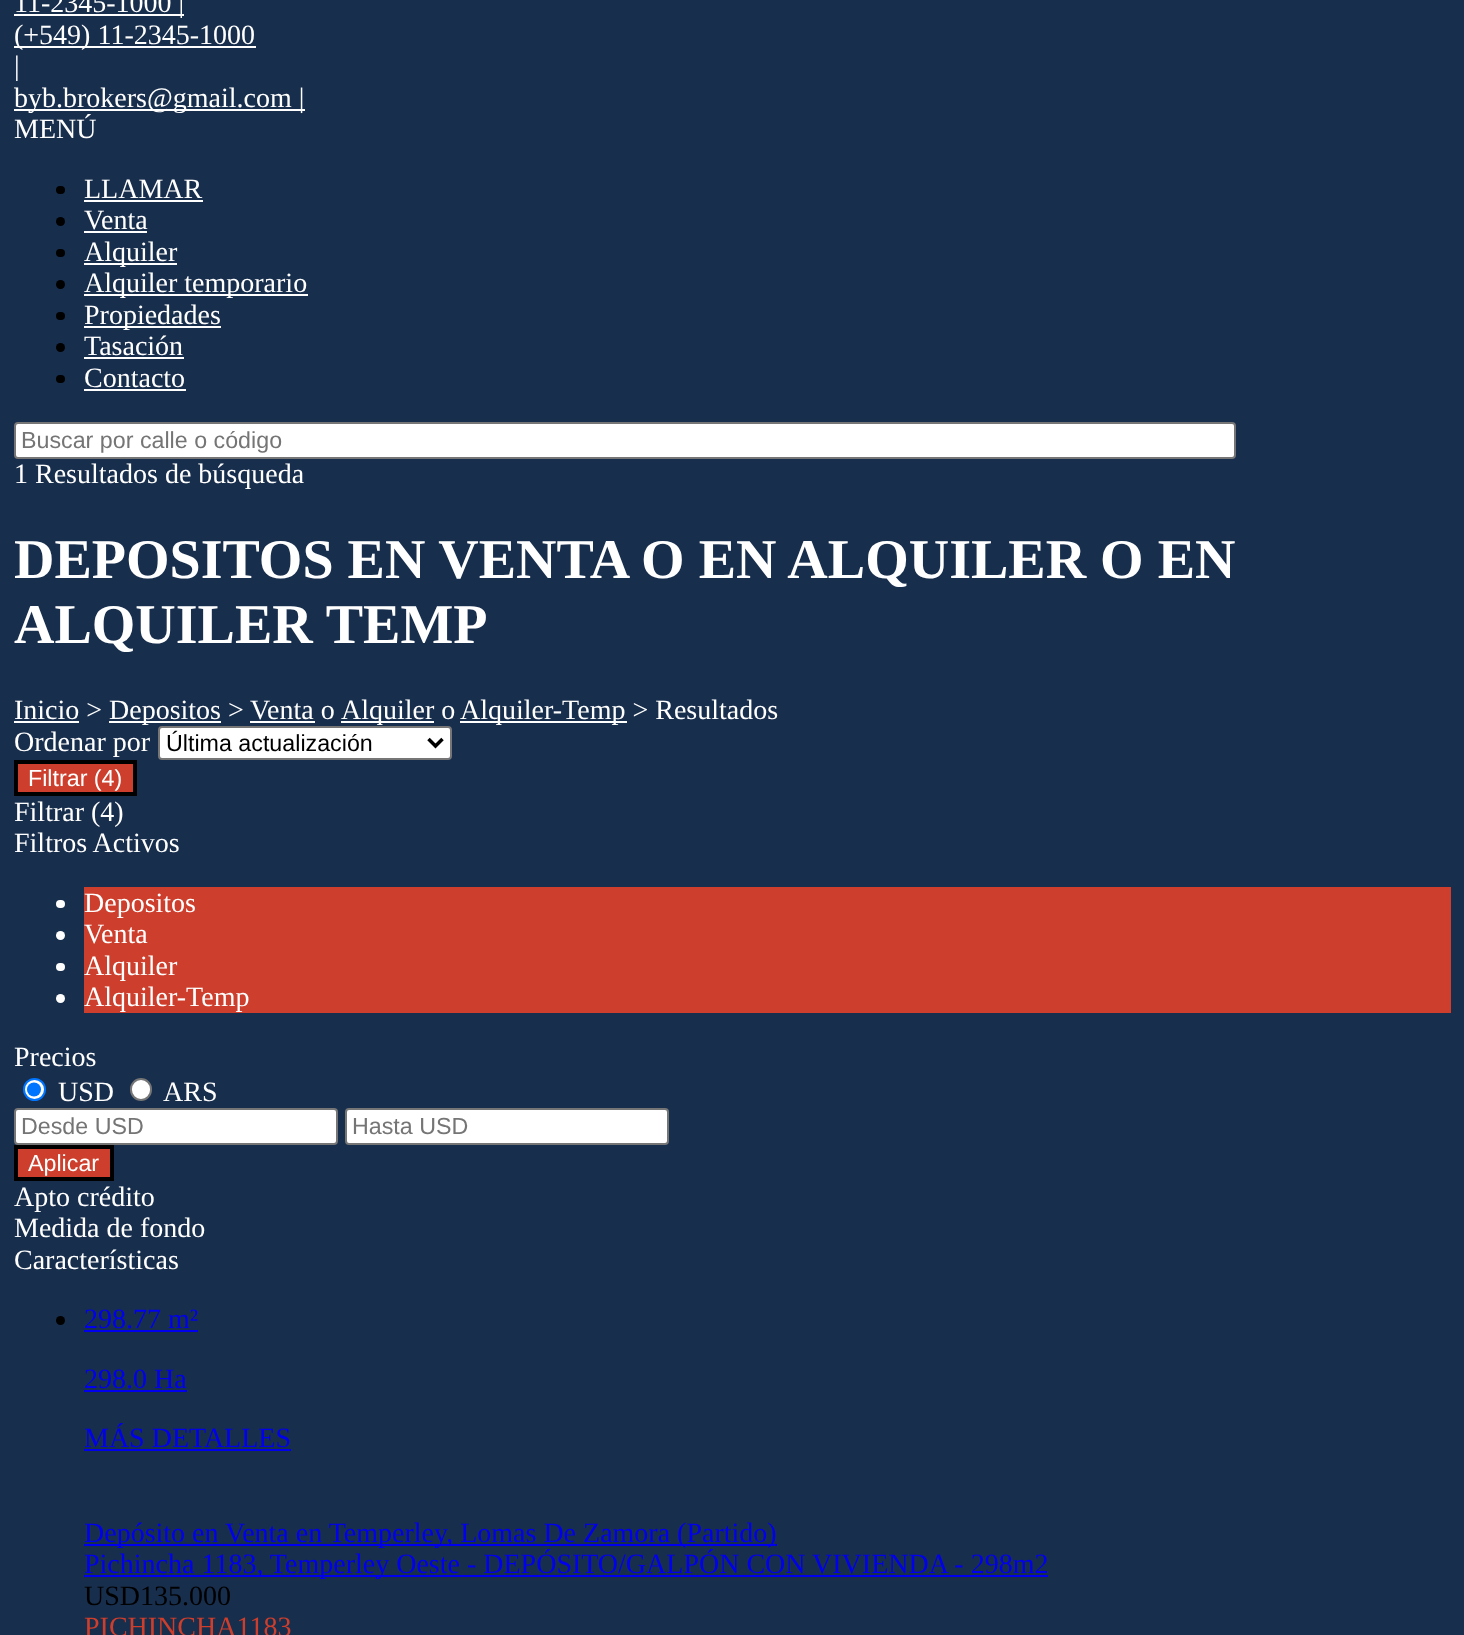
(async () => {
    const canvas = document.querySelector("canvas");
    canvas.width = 1464;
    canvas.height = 1635;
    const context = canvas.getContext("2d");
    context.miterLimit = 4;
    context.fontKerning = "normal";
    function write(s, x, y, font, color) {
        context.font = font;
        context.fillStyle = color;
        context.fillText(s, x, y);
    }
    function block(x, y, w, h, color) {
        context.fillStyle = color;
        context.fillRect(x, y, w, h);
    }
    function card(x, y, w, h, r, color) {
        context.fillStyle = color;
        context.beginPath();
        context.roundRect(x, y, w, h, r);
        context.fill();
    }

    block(0, 0, 1464, 1635, "rgb(24, 46, 77)");
    block(14, 14, 170, 2, "rgb(255, 255, 255)");
    write("11-2345-1000 |", 14, 12, "28px Liberation Serif", "rgb(255, 255, 255)");
    block(14, 46, 242, 2, "rgb(255, 255, 255)");
    write("(+549) 11-2345-1000", 14, 44, "28px Liberation Serif", "rgb(255, 255, 255)");
    write("|", 14, 75, "28px Liberation Serif", "rgb(255, 255, 255)");
    block(14, 109, 291, 2, "rgb(255, 255, 255)");
    write("byb.brokers@gmail.com |", 14, 107, "28px Liberation Serif", "rgb(255, 255, 255)");
    write("MENÚ", 14, 138, "28px Liberation Serif", "rgb(255, 255, 255)");
    card(56, 186, 9, 8, 4, "rgb(0, 0, 0)");
    write("LLAMAR", 84, 198, "28px Liberation Serif", "rgb(255, 255, 255)");
    block(84, 200, 119, 2, "rgb(255, 255, 255)");
    context.fillStyle = "rgb(0, 0, 0)";
    context.beginPath();
    context.arc(60.5, 221.5, 4.5, 0, Math.PI * 2);
    context.fill();
    write("Venta", 84, 229, "28px Liberation Serif", "rgb(255, 255, 255)");
    block(84, 231, 63, 2, "rgb(255, 255, 255)");
    card(56, 249, 9, 8, 4, "rgb(0, 0, 0)");
    block(84, 263, 93, 2, "rgb(255, 255, 255)");
    write("Alquiler", 84, 261, "28px Liberation Serif", "rgb(255, 255, 255)");
    context.fillStyle = "rgb(0, 0, 0)";
    context.beginPath();
    context.arc(60.5, 284.5, 4.5, 0, Math.PI * 2);
    context.fill();
    block(84, 294, 224, 2, "rgb(255, 255, 255)");
    write("Alquiler temporario", 84, 292, "28px Liberation Serif", "rgb(255, 255, 255)");
    card(56, 312, 9, 8, 4, "rgb(0, 0, 0)");
    block(84, 326, 137, 2, "rgb(255, 255, 255)");
    write("Propiedades", 84, 324, "28px Liberation Serif", "rgb(255, 255, 255)");
    context.fillStyle = "rgb(0, 0, 0)";
    context.beginPath();
    context.arc(60.5, 347.5, 4.5, 0, Math.PI * 2);
    context.fill();
    write("Tasación", 84, 355, "28px Liberation Serif", "rgb(255, 255, 255)");
    block(84, 357, 100, 2, "rgb(255, 255, 255)");
    card(56, 375, 9, 8, 4, "rgb(0, 0, 0)");
    write("Contacto", 84, 387, "28px Liberation Serif", "rgb(255, 255, 255)");
    block(84, 389, 102, 2, "rgb(255, 255, 255)");
    context.beginPath();
    context.roundRect(15, 423, 1220, 35, 3);
    context.fill();
    context.strokeStyle = "rgb(118, 118, 118)";
    context.lineWidth = 2;
    context.stroke();
    write("Buscar por calle o código", 21, 448, "23.25px Liberation Sans", "rgb(117, 117, 117)");
    write("1 Resultados de búsqueda", 14, 483, "28px Liberation Serif", "rgb(255, 255, 255)");
    write("DEPOSITOS EN VENTA O EN ALQUILER O EN", 14, 578, "bold 56px Liberation Serif", "rgb(255, 255, 255)");
    write("ALQUILER TEMP", 14, 643, "bold 56px Liberation Serif", "rgb(255, 255, 255)");
    write("Inicio >", 14, 719, "28px Liberation Serif", "rgb(255, 255, 255)");
    block(14, 721, 65, 2, "rgb(255, 255, 255)");
    block(109, 721, 112, 2, "rgb(255, 255, 255)");
    write("Depositos >", 109, 719, "28px Liberation Serif", "rgb(255, 255, 255)");
    write("Venta o", 250, 719, "28px Liberation Serif", "rgb(255, 255, 255)");
    block(250, 721, 65, 2, "rgb(255, 255, 255)");
    block(341, 721, 93, 2, "rgb(255, 255, 255)");
    write("Alquiler o", 341, 719, "28px Liberation Serif", "rgb(255, 255, 255)");
    block(460, 721, 167, 2, "rgb(255, 255, 255)");
    write("Alquiler-Temp > Resultados", 460, 719, "28px Liberation Serif", "rgb(255, 255, 255)");
    write("Ordenar por", 14, 751, "28px Liberation Serif", "rgb(255, 255, 255)");
    context.beginPath();
    context.roundRect(159, 727, 292, 32, 3);
    context.fill();
    context.stroke();
    context.beginPath();
    context.moveTo(428.5, 739);
    context.lineTo(435.5, 746);
    context.lineTo(442.5, 739);
    context.strokeStyle = "rgb(0, 0, 0)";
    context.lineWidth = 3.5;
    context.stroke();
    write("Última actualización", 166, 751, "23.25px Liberation Sans", "rgb(0, 0, 0)");
    context.fillStyle = "rgb(205, 62, 44)";
    context.beginPath();
    context.rect(16, 762, 119, 32);
    context.fill();
    context.lineWidth = 4;
    context.stroke();
    write("Filtrar (4)", 28, 786, "23.25px Liberation Sans", "rgb(255, 255, 255)");
    write("Filtrar (4)", 14, 821, "28px Liberation Serif", "rgb(255, 255, 255)");
    write("Filtros Activos", 14, 852, "28px Liberation Serif", "rgb(255, 255, 255)");
    block(84, 887, 1367, 126, "rgb(205, 62, 44)");
    card(56, 900, 9, 8, 4, "rgb(255, 255, 255)");
    write("Depositos", 84, 912, "28px Liberation Serif", "rgb(255, 255, 255)");
    context.beginPath();
    context.arc(60.5, 935.5, 4.5, 0, Math.PI * 2);
    context.fill();
    write("Venta", 84, 943, "28px Liberation Serif", "rgb(255, 255, 255)");
    card(56, 963, 9, 8, 4, "rgb(255, 255, 255)");
    write("Alquiler", 84, 975, "28px Liberation Serif", "rgb(255, 255, 255)");
    context.beginPath();
    context.arc(60.5, 998.5, 4.5, 0, Math.PI * 2);
    context.fill();
    write("Alquiler-Temp", 84, 1006, "28px Liberation Serif", "rgb(255, 255, 255)");
    write("Precios", 14, 1066, "28px Liberation Serif", "rgb(255, 255, 255)");
    context.beginPath();
    context.arc(34.5, 1089.5, 10.5, 0, Math.PI * 2);
    context.fill();
    context.strokeStyle = "rgb(0, 117, 255)";
    context.lineWidth = 2;
    context.stroke();
    context.fillStyle = "rgb(0, 117, 255)";
    context.beginPath();
    context.arc(34, 1089.5, 7, 0, Math.PI * 2);
    context.fill();
    write("USD", 58, 1101, "28px Liberation Serif", "rgb(255, 255, 255)");
    context.beginPath();
    context.roundRect(131, 1079, 20, 21, 10);
    context.fill();
    context.strokeStyle = "rgb(118, 118, 118)";
    context.stroke();
    write("ARS", 163, 1101, "28px Liberation Serif", "rgb(255, 255, 255)");
    context.beginPath();
    context.roundRect(15, 1109, 322, 35, 3);
    context.fill();
    context.stroke();
    write("Desde USD", 21, 1134, "23.25px Liberation Sans", "rgb(117, 117, 117)");
    context.fillStyle = "rgb(255, 255, 255)";
    context.beginPath();
    context.roundRect(346, 1109, 322, 35, 3);
    context.fill();
    context.stroke();
    write("Hasta USD", 352, 1134, "23.25px Liberation Sans", "rgb(117, 117, 117)");
    context.fillStyle = "rgb(205, 62, 44)";
    context.beginPath();
    context.rect(16, 1147, 96, 32);
    context.fill();
    context.strokeStyle = "rgb(0, 0, 0)";
    context.lineWidth = 4;
    context.stroke();
    write("Aplicar", 28, 1171, "23.25px Liberation Sans", "rgb(255, 255, 255)");
    write("Apto crédito", 14, 1206, "28px Liberation Serif", "rgb(255, 255, 255)");
    write("Medida de fondo", 14, 1237, "28px Liberation Serif", "rgb(255, 255, 255)");
    write("Características", 14, 1269, "28px Liberation Serif", "rgb(255, 255, 255)");
    context.fillStyle = "rgb(0, 0, 0)";
    context.beginPath();
    context.arc(60.5, 1320.5, 4.5, 0, Math.PI * 2);
    context.fill();
    write("298.77 m²", 84, 1328, "28px Liberation Serif", "rgb(0, 0, 238)");
    block(84, 1330, 114, 2, "rgb(0, 0, 238)");
    write("298.0 Ha", 84, 1388, "28px Liberation Serif", "rgb(0, 0, 238)");
    block(84, 1390, 103, 2, "rgb(0, 0, 238)");
    write("MÁS DETALLES", 84, 1447, "28px Liberation Serif", "rgb(0, 0, 238)");
    block(84, 1449, 207, 2, "rgb(0, 0, 238)");
    block(84, 1544, 693, 2, "rgb(0, 0, 238)");
    write("Depósito en Venta en Temperley, Lomas De Zamora (Partido)", 84, 1542, "28px Liberation Serif", "rgb(0, 0, 238)");
    block(84, 1575, 964, 2, "rgb(0, 0, 238)");
    write("Pichincha 1183, Temperley Oeste - DEPÓSITO/GALPÓN CON VIVIENDA - 298m2", 84, 1573, "28px Liberation Serif", "rgb(0, 0, 238)");
    write("USD135.000", 84, 1605, "28px Liberation Serif", "rgb(0, 0, 0)");
    write("PICHINCHA1183", 84, 1636, "28px Liberation Serif", "rgb(205, 62, 44)");
})();
